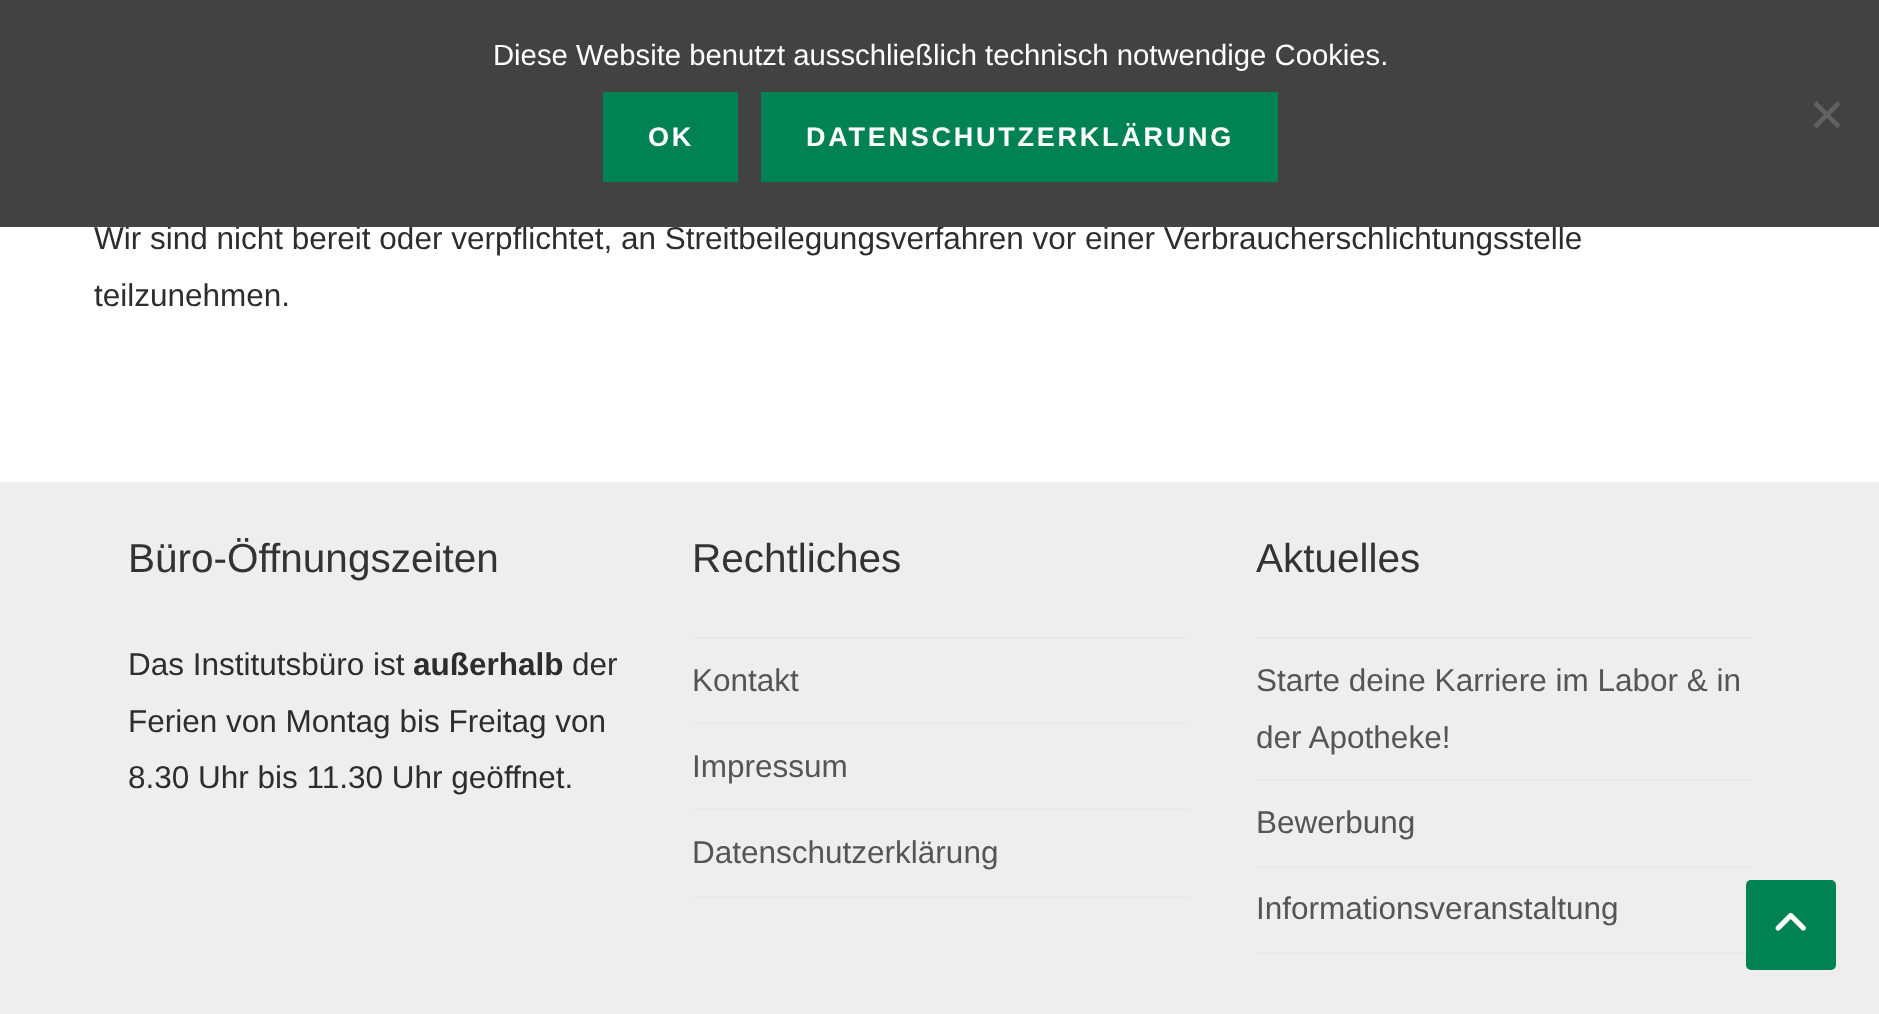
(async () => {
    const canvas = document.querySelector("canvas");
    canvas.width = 1879;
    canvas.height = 1014;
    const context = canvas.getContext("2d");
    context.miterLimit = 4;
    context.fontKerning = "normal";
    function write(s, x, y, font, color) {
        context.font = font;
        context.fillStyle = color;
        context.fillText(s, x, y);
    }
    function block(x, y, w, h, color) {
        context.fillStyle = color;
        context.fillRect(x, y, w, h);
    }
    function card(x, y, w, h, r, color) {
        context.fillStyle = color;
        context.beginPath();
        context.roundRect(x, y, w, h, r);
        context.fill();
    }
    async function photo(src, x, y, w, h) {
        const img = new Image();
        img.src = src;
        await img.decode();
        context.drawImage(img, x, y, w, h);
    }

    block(0, 0, 1879, 1014, "rgb(255, 255, 255)");
    write("Wir sind nicht bereit oder verpflichtet, an Streitbeilegungsverfahren vor einer Verbraucherschlichtungsstelle", 94, 249, "31.5px Liberation Sans", "rgb(45, 45, 45)");
    block(0, 0, 1879, 227, "rgb(66, 66, 66)");
    write("Diese Website benutzt ausschließlich technisch notwendige Cookies.", 493, 65, "29.25px Liberation Sans", "rgb(255, 255, 255)");
    context.fillStyle = "rgb(97, 97, 97)";
    context.beginPath();
    context.moveTo(1837.5, 101);
    context.lineTo(1840.5, 104.5);
    context.lineTo(1816.5, 128.5);
    context.lineTo(1813.5, 125);
    context.closePath();
    context.fill();
    context.beginPath();
    context.moveTo(1813.5, 104.5);
    context.lineTo(1816.5, 101);
    context.lineTo(1840.5, 125);
    context.lineTo(1837.5, 128.5);
    context.closePath();
    context.fill();
    block(603, 92, 135, 90, "rgb(0, 130, 84)");
    context.letterSpacing = "2.75px";
    write("OK", 648, 146, "bold 27px Liberation Sans", "rgb(255, 255, 255)");
    block(761, 92, 517, 90, "rgb(0, 130, 84)");
    write("DATENSCHUTZERKLÄRUNG", 806, 146, "bold 27px Liberation Sans", "rgb(255, 255, 255)");
    context.letterSpacing = "0px";
    write("teilzunehmen.", 94, 306, "31.5px Liberation Sans", "rgb(45, 45, 45)");
    block(0, 482, 1879, 532, "rgb(238, 238, 238)");
    write("Büro-Öffnungszeiten", 128, 572, "40.5px Liberation Sans", "rgb(51, 51, 51)");
    write("Das Institutsbüro ist", 128, 675, "31.5px Liberation Sans", "rgb(45, 45, 45)");
    write("außerhalb", 413, 675, "bold 31.5px Liberation Sans", "rgb(45, 45, 45)");
    write("der", 572, 675, "31.5px Liberation Sans", "rgb(45, 45, 45)");
    write("Ferien von Montag bis Freitag von", 128, 732, "31.5px Liberation Sans", "rgb(45, 45, 45)");
    write("8.30 Uhr bis 11.30 Uhr geöffnet.", 128, 788, "31.5px Liberation Sans", "rgb(45, 45, 45)");
    write("Rechtliches", 692, 572, "40.5px Liberation Sans", "rgb(51, 51, 51)");
    block(693, 637, 495, 2, "rgb(233, 233, 233)");
    block(693, 722, 495, 2, "rgb(233, 233, 233)");
    write("Kontakt", 692, 691, "31.5px Liberation Sans", "rgb(85, 85, 85)");
    block(693, 808, 495, 2, "rgb(233, 233, 233)");
    write("Impressum", 692, 777, "31.5px Liberation Sans", "rgb(85, 85, 85)");
    block(693, 896, 495, 2, "rgb(233, 233, 233)");
    write("Datenschutzerklärung", 692, 863, "31.5px Liberation Sans", "rgb(85, 85, 85)");
    write("Aktuelles", 1256, 572, "40.5px Liberation Sans", "rgb(51, 51, 51)");
    block(1256, 637, 497, 2, "rgb(233, 233, 233)");
    block(1256, 779, 497, 2, "rgb(233, 233, 233)");
    write("Starte deine Karriere im Labor & in", 1256, 691, "31.5px Liberation Sans", "rgb(85, 85, 85)");
    write("der Apotheke!", 1256, 748, "31.5px Liberation Sans", "rgb(85, 85, 85)");
    block(1256, 866, 497, 2, "rgb(233, 233, 233)");
    write("Bewerbung", 1256, 833, "31.5px Liberation Sans", "rgb(85, 85, 85)");
    block(1256, 952, 497, 2, "rgb(233, 233, 233)");
    write("Informationsveranstaltung", 1256, 919, "31.5px Liberation Sans", "rgb(85, 85, 85)");
    card(1746, 880, 90, 90, 5, "rgb(0, 130, 84)");
    await photo("media/1.png", 1775, 913, 31, 18);
})();
